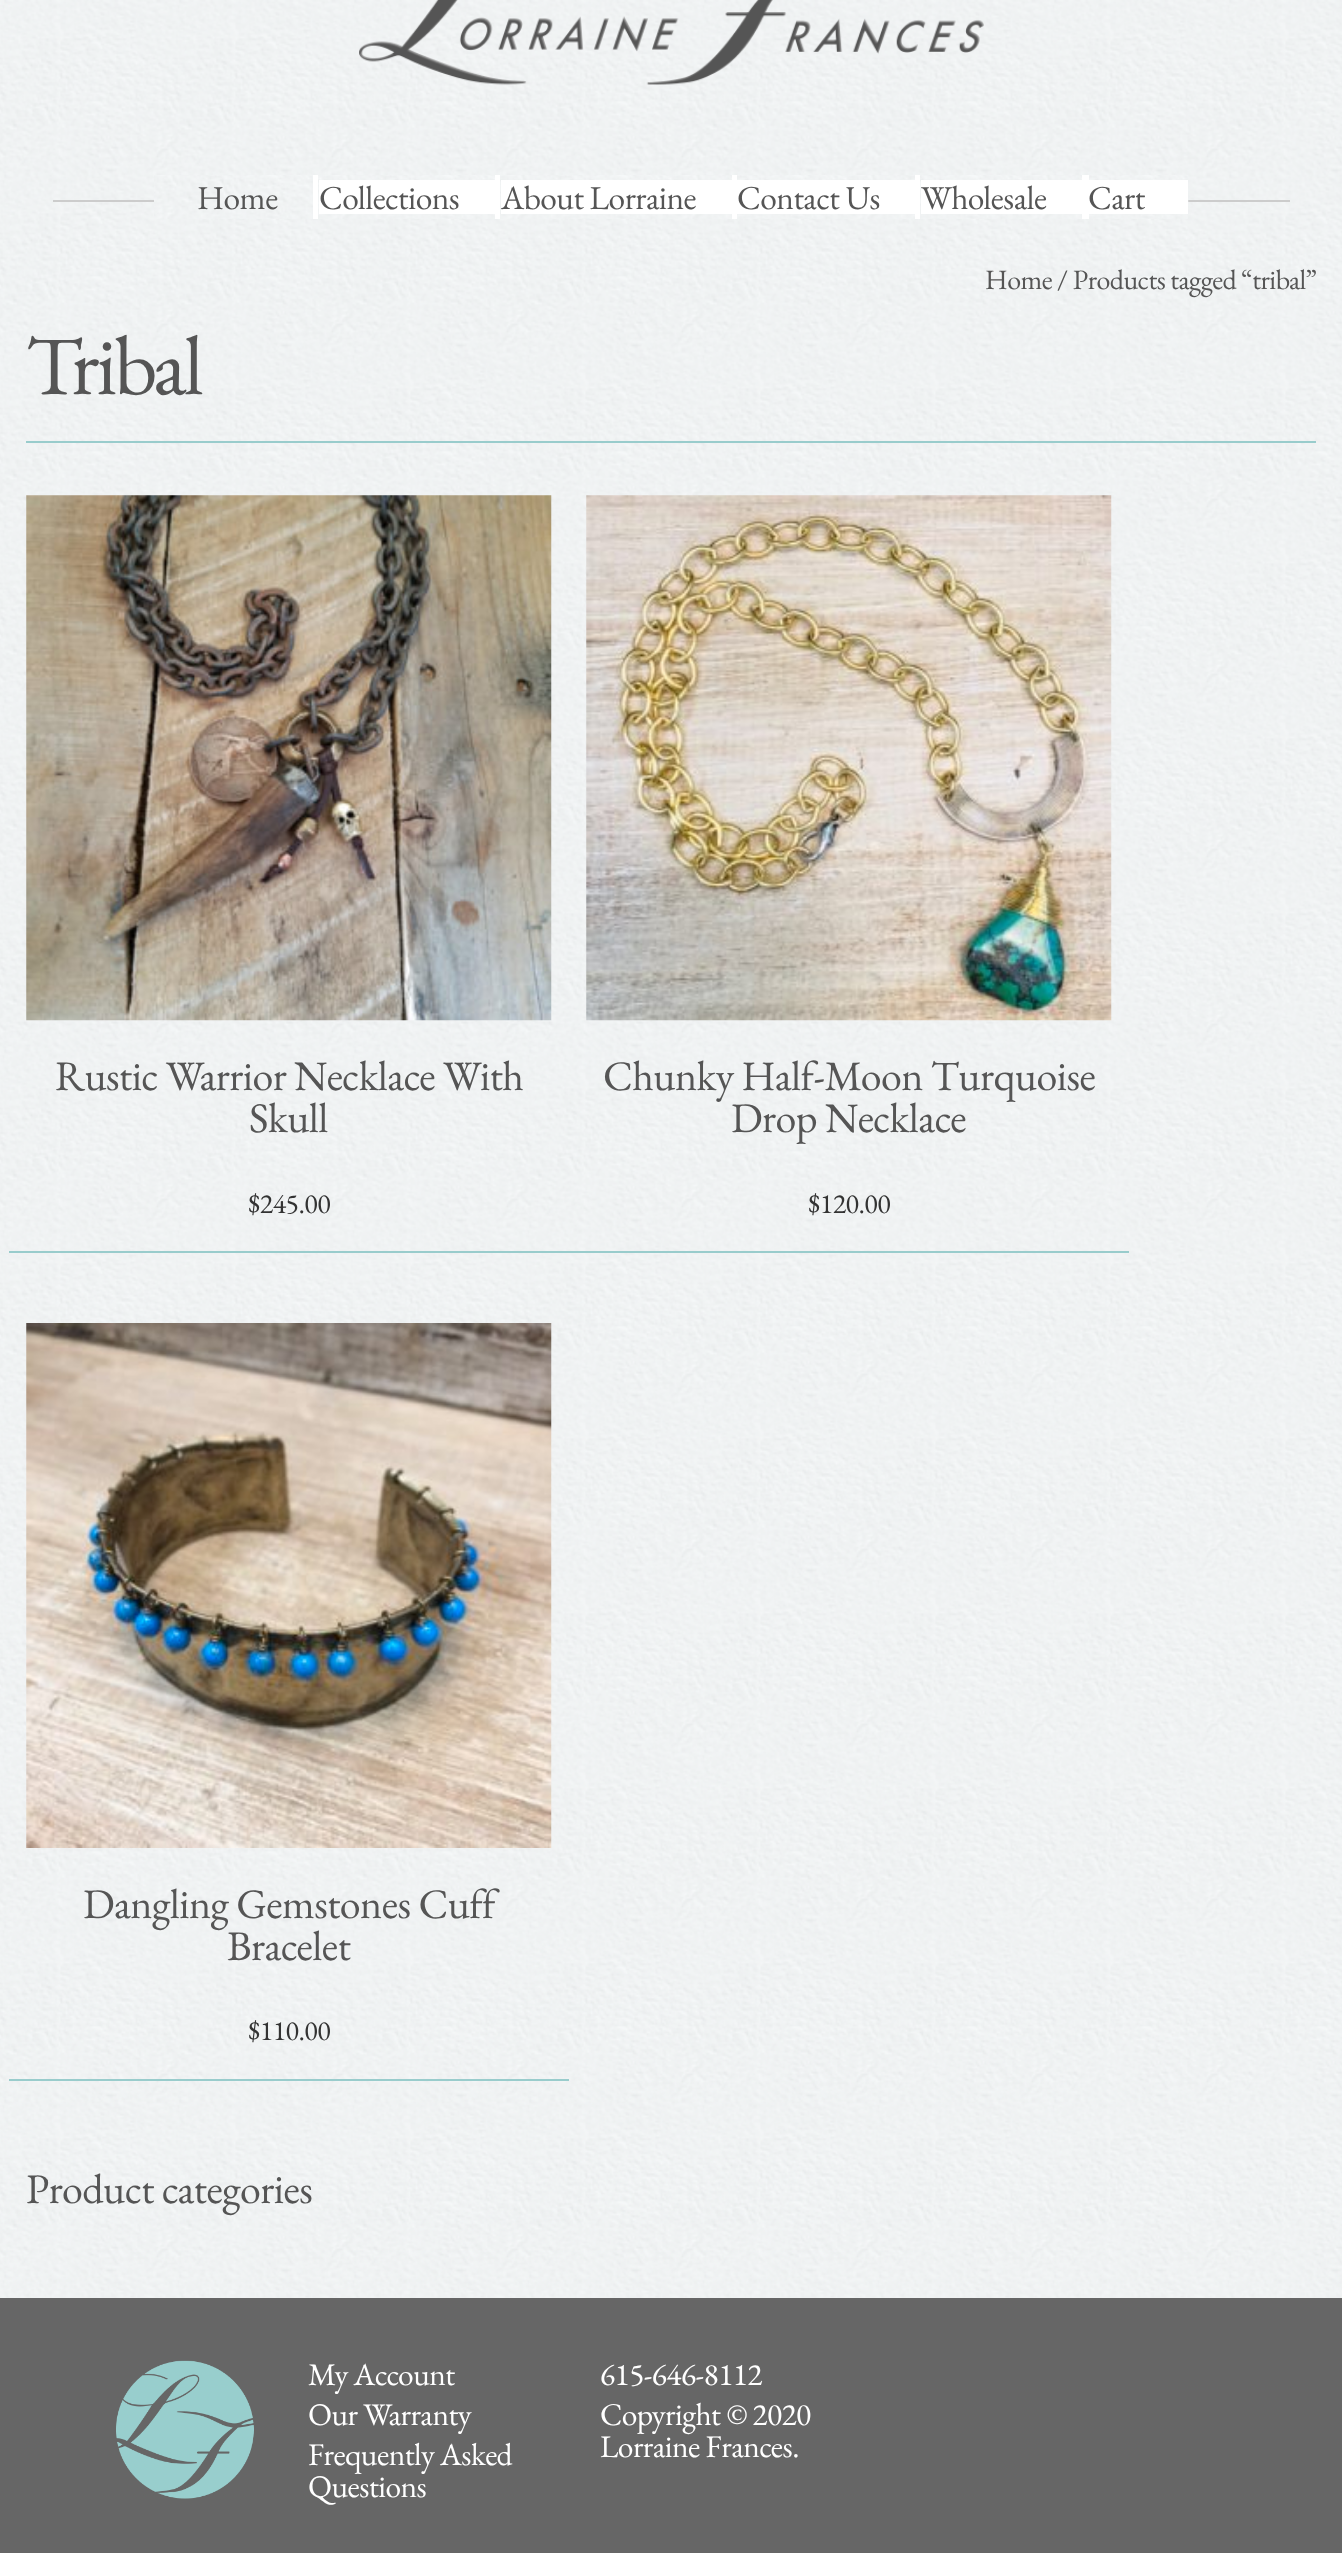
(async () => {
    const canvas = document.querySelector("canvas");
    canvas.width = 1342;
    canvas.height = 2553;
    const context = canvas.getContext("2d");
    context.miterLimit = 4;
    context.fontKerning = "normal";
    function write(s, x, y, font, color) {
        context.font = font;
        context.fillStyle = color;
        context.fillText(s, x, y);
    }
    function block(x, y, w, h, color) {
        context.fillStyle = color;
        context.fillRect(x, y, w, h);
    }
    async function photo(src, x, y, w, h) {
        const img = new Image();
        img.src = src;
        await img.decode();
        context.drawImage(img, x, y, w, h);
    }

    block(0, 0, 1342, 2553, "rgb(255, 255, 255)");
    await photo("media/1.png", 0, 0, 1342, 2298);
    await photo("media/2.png", 359, 0, 625, 85);
    block(53, 200, 1237, 2, "rgb(204, 204, 204)");
    await photo("media/3.png", 154, 175, 1035, 44);
    block(313, 175, 5, 44, "rgb(255, 255, 255)");
    block(319, 180, 176, 34, "rgb(255, 255, 255)");
    block(495, 175, 5, 44, "rgb(255, 255, 255)");
    block(501, 180, 231, 34, "rgb(255, 255, 255)");
    block(732, 175, 5, 44, "rgb(255, 255, 255)");
    block(737, 180, 178, 34, "rgb(255, 255, 255)");
    block(915, 175, 5, 44, "rgb(255, 255, 255)");
    block(921, 180, 161, 34, "rgb(255, 255, 255)");
    block(1082, 175, 7, 44, "rgb(255, 255, 255)");
    block(1089, 180, 99, 34, "rgb(255, 255, 255)");
    context.letterSpacing = "-0.55px";
    write("Home", 197, 209, "33.5px EB Garamond", "rgb(85, 85, 85)");
    write("Collections", 319, 209, "33.5px EB Garamond", "rgb(85, 85, 85)");
    write("About Lorraine", 501, 209, "33.5px EB Garamond", "rgb(85, 85, 85)");
    write("Contact Us", 737, 209, "33.5px EB Garamond", "rgb(85, 85, 85)");
    write("Wholesale", 921, 209, "33.5px EB Garamond", "rgb(85, 85, 85)");
    write("Cart", 1088, 209, "33.5px EB Garamond", "rgb(85, 85, 85)");
    write("Home / Products tagged “tribal”", 985, 289, "28px EB Garamond", "rgb(85, 85, 85)");
    block(26, 441, 1290, 2, "rgb(153, 204, 204)");
    context.letterSpacing = "-2.75px";
    write("Tribal", 26, 394, "84px EB Garamond", "rgb(85, 85, 85)");
    block(9, 1251, 1120, 2, "rgb(153, 204, 204)");
    await photo("media/4.png", 26, 495, 526, 526);
    context.letterSpacing = "-0.55px";
    write("Rustic Warrior Necklace With", 55, 1090, "42px EB Garamond", "rgb(85, 85, 85)");
    write("Skull", 249, 1132, "42px EB Garamond", "rgb(85, 85, 85)");
    write("$245.00", 248, 1213, "28px EB Garamond", "rgb(51, 51, 51)");
    await photo("media/5.png", 586, 495, 526, 526);
    write("Chunky Half-Moon Turquoise", 603, 1090, "42px EB Garamond", "rgb(85, 85, 85)");
    write("Drop Necklace", 731, 1132, "42px EB Garamond", "rgb(85, 85, 85)");
    write("$120.00", 808, 1213, "28px EB Garamond", "rgb(51, 51, 51)");
    block(9, 2079, 560, 2, "rgb(153, 204, 204)");
    await photo("media/6.png", 26, 1323, 526, 525);
    write("Dangling Gemstones Cuff", 83, 1918, "42px EB Garamond", "rgb(85, 85, 85)");
    write("Bracelet", 227, 1960, "42px EB Garamond", "rgb(85, 85, 85)");
    write("$110.00", 248, 2040, "28px EB Garamond", "rgb(51, 51, 51)");
    write("Product categories", 26, 2203, "42px EB Garamond", "rgb(85, 85, 85)");
    block(0, 2298, 1342, 255, "rgb(102, 102, 102)");
    await photo("media/7.png", 116, 2360, 138, 139);
    write("My Account", 308, 2385, "31.5px EB Garamond", "rgb(255, 255, 255)");
    write("Our Warranty", 308, 2425, "31.5px EB Garamond", "rgb(255, 255, 255)");
    write("Frequently Asked", 308, 2465, "31.5px EB Garamond", "rgb(255, 255, 255)");
    write("Questions", 308, 2497, "31.5px EB Garamond", "rgb(255, 255, 255)");
    write("615-646-8112", 600, 2385, "31.5px EB Garamond", "rgb(255, 255, 255)");
    write("Copyright © 2020", 600, 2425, "31.5px EB Garamond", "rgb(255, 255, 255)");
    write("Lorraine Frances.", 600, 2457, "31.5px EB Garamond", "rgb(255, 255, 255)");
})();
